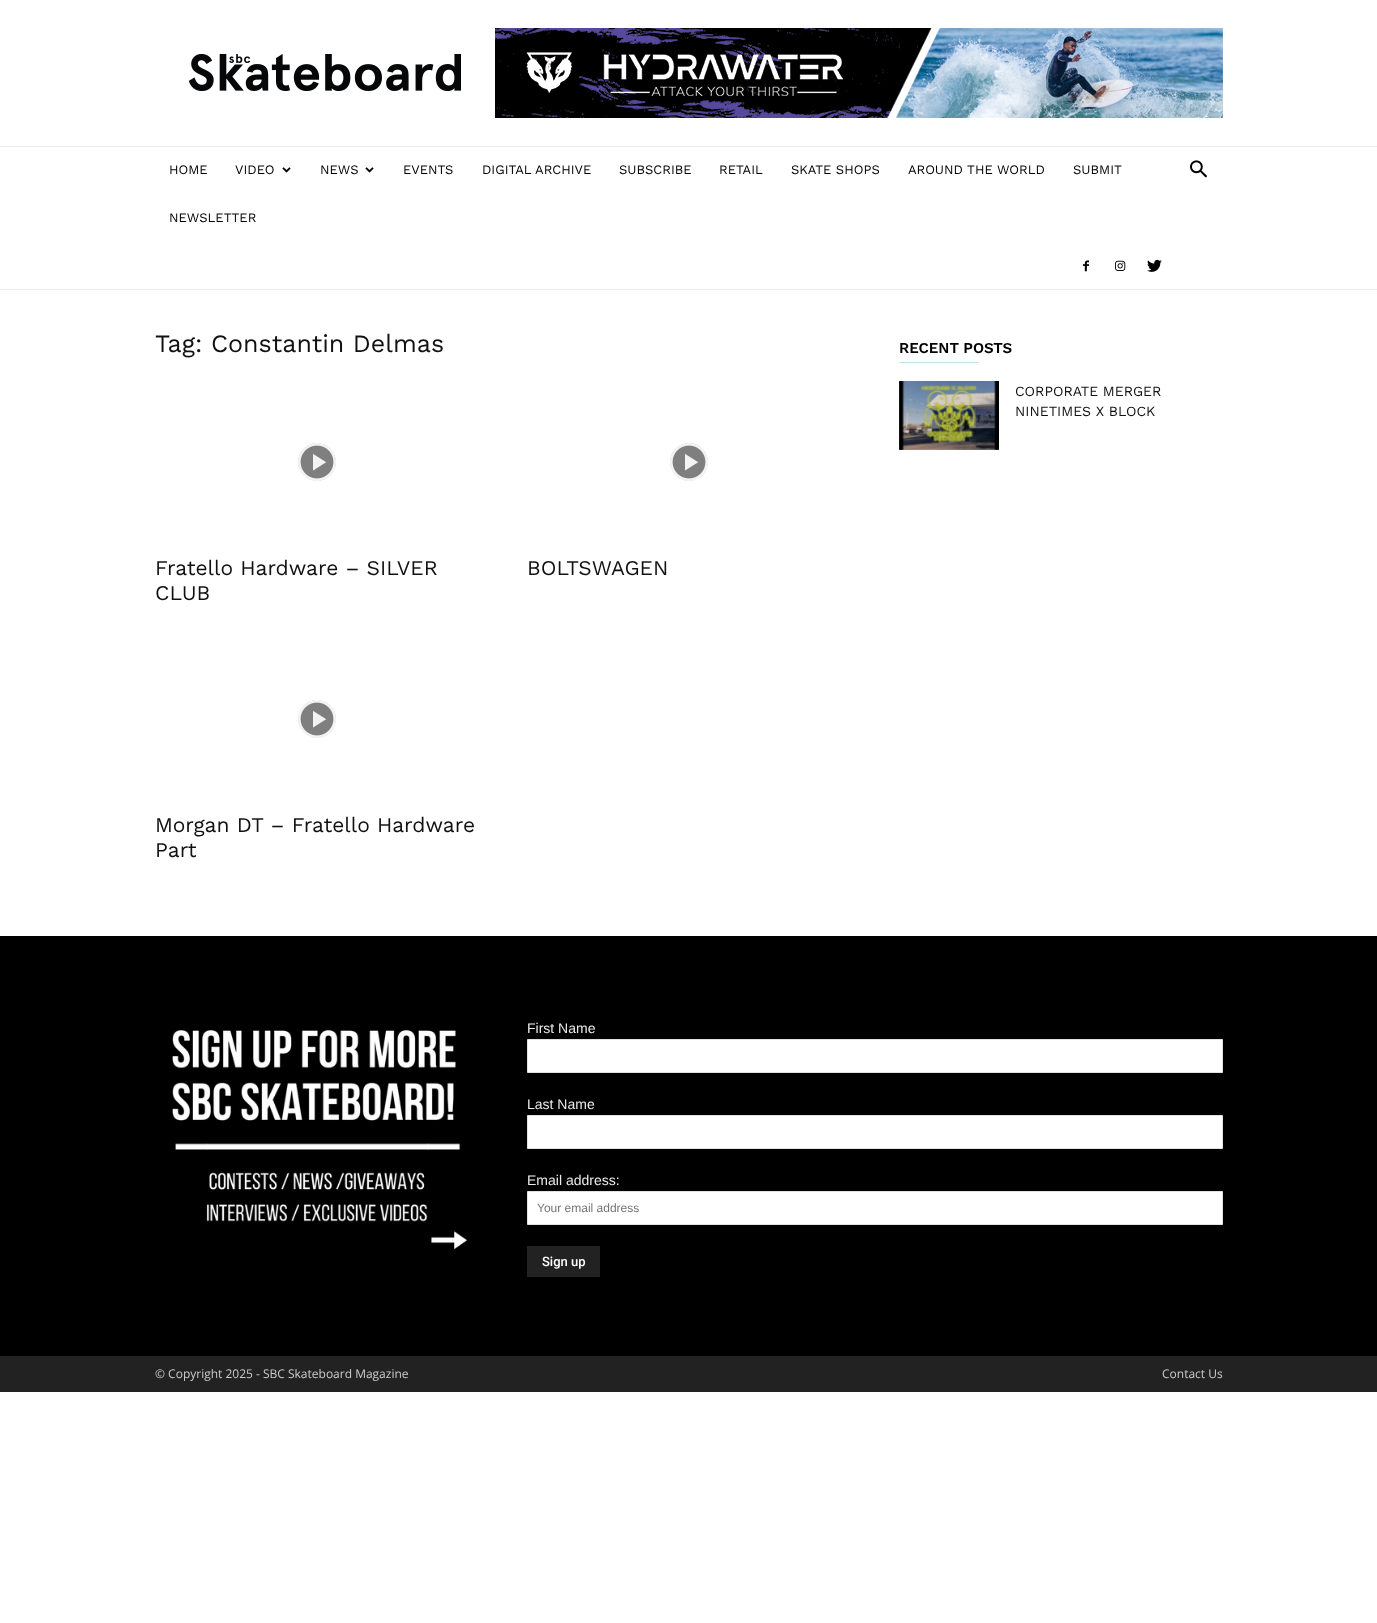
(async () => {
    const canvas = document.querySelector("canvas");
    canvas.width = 1377;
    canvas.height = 1623;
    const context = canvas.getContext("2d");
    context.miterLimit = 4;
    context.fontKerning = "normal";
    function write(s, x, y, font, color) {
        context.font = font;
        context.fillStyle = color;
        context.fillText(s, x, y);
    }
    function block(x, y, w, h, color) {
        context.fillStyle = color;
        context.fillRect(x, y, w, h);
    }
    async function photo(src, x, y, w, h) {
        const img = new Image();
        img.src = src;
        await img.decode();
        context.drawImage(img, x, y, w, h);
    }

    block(0, 0, 1377, 1623, "rgb(255, 255, 255)");
    await photo("media/1.png", 189, 54, 272, 37);
    await photo("media/2.png", 495, 28, 728, 90);
    block(0, 146, 1377, 1, "rgb(235, 235, 235)");
    write("HOME", 169, 174, "13px Work Sans", "rgb(0, 0, 0)");
    write("VIDEO", 235, 174, "13px Work Sans", "rgb(0, 0, 0)");
    await photo("media/3.png", 282, 167, 9, 6);
    write("NEWS", 320, 174, "13px Work Sans", "rgb(0, 0, 0)");
    await photo("media/3.png", 365, 167, 9, 6);
    write("EVENTS", 403, 174, "13px Work Sans", "rgb(0, 0, 0)");
    write("DIGITAL ARCHIVE", 482, 174, "13px Work Sans", "rgb(0, 0, 0)");
    write("SUBSCRIBE", 619, 174, "13px Work Sans", "rgb(0, 0, 0)");
    write("RETAIL", 719, 174, "13px Work Sans", "rgb(0, 0, 0)");
    write("SKATE SHOPS", 791, 174, "13px Work Sans", "rgb(0, 0, 0)");
    write("AROUND THE WORLD", 908, 174, "13px Work Sans", "rgb(0, 0, 0)");
    write("SUBMIT", 1073, 174, "13px Work Sans", "rgb(0, 0, 0)");
    write("NEWSLETTER", 169, 222, "13px Work Sans", "rgb(0, 0, 0)");
    await photo("media/4.png", 1190, 160, 17, 18);
    await photo("media/5.png", 1083, 260, 6, 12);
    await photo("media/6.png", 1115, 260, 11, 11);
    await photo("media/7.png", 1147, 259, 15, 13);
    block(0, 289, 1377, 1, "rgb(235, 235, 235)");
    write("Tag: Constantin Delmas", 155, 352, "25px Work Sans", "rgb(17, 17, 17)");
    await photo("media/8.png", 298, 443, 38, 38);
    write("Fratello Hardware – SILVER", 155, 575, "21px Work Sans", "rgb(17, 17, 17)");
    write("CLUB", 155, 600, "21px Work Sans", "rgb(17, 17, 17)");
    await photo("media/8.png", 670, 443, 38, 38);
    write("BOLTSWAGEN", 527, 575, "21px Work Sans", "rgb(17, 17, 17)");
    await photo("media/8.png", 298, 700, 38, 38);
    write("Morgan DT – Fratello Hardware", 155, 832, "21px Work Sans", "rgb(17, 17, 17)");
    write("Part", 155, 857, "21px Work Sans", "rgb(17, 17, 17)");
    write("RECENT POSTS", 899, 353, "600 15px Work Sans", "rgb(0, 0, 0)");
    block(899, 362, 80, 1, "rgb(195, 228, 236)");
    await photo("media/9.png", 899, 381, 100, 69);
    write("CORPORATE MERGER", 1015, 396, "14px Work Sans", "rgb(17, 17, 17)");
    write("NINETIMES X BLOCK", 1015, 416, "14px Work Sans", "rgb(17, 17, 17)");
    block(0, 936, 1377, 420, "rgb(0, 0, 0)");
    await photo("media/10.png", 172, 1030, 295, 220);
    write("First Name", 527, 1033, "14px Liberation Sans", "rgb(234, 234, 234)");
    context.fillStyle = "rgb(255, 255, 255)";
    context.beginPath();
    context.rect(527.5, 1039.5, 695, 33);
    context.fill();
    context.strokeStyle = "rgb(225, 225, 225)";
    context.stroke();
    write("Last Name", 527, 1109, "14px Liberation Sans", "rgb(234, 234, 234)");
    context.fillStyle = "rgb(255, 255, 255)";
    context.beginPath();
    context.rect(527.5, 1115.5, 695, 33);
    context.fill();
    context.stroke();
    write("Email address:", 527, 1185, "14px Liberation Sans", "rgb(234, 234, 234)");
    context.fillStyle = "rgb(255, 255, 255)";
    context.beginPath();
    context.rect(527.5, 1191.5, 695, 33);
    context.fill();
    context.stroke();
    write("Your email address", 537, 1212, "12px Liberation Sans", "rgb(117, 117, 117)");
    block(527, 1246, 73, 31, "rgb(34, 34, 34)");
    write("Sign up", 542, 1266, "500 13px Roboto", "rgb(255, 255, 255)");
    block(0, 1356, 1377, 36, "rgb(34, 34, 34)");
    write("© Copyright 2025 - SBC Skateboard Magazine", 155, 1378, "12px Open Sans", "rgb(204, 204, 204)");
    write("Contact Us", 1162, 1378, "12px Open Sans", "rgb(204, 204, 204)");
})();
